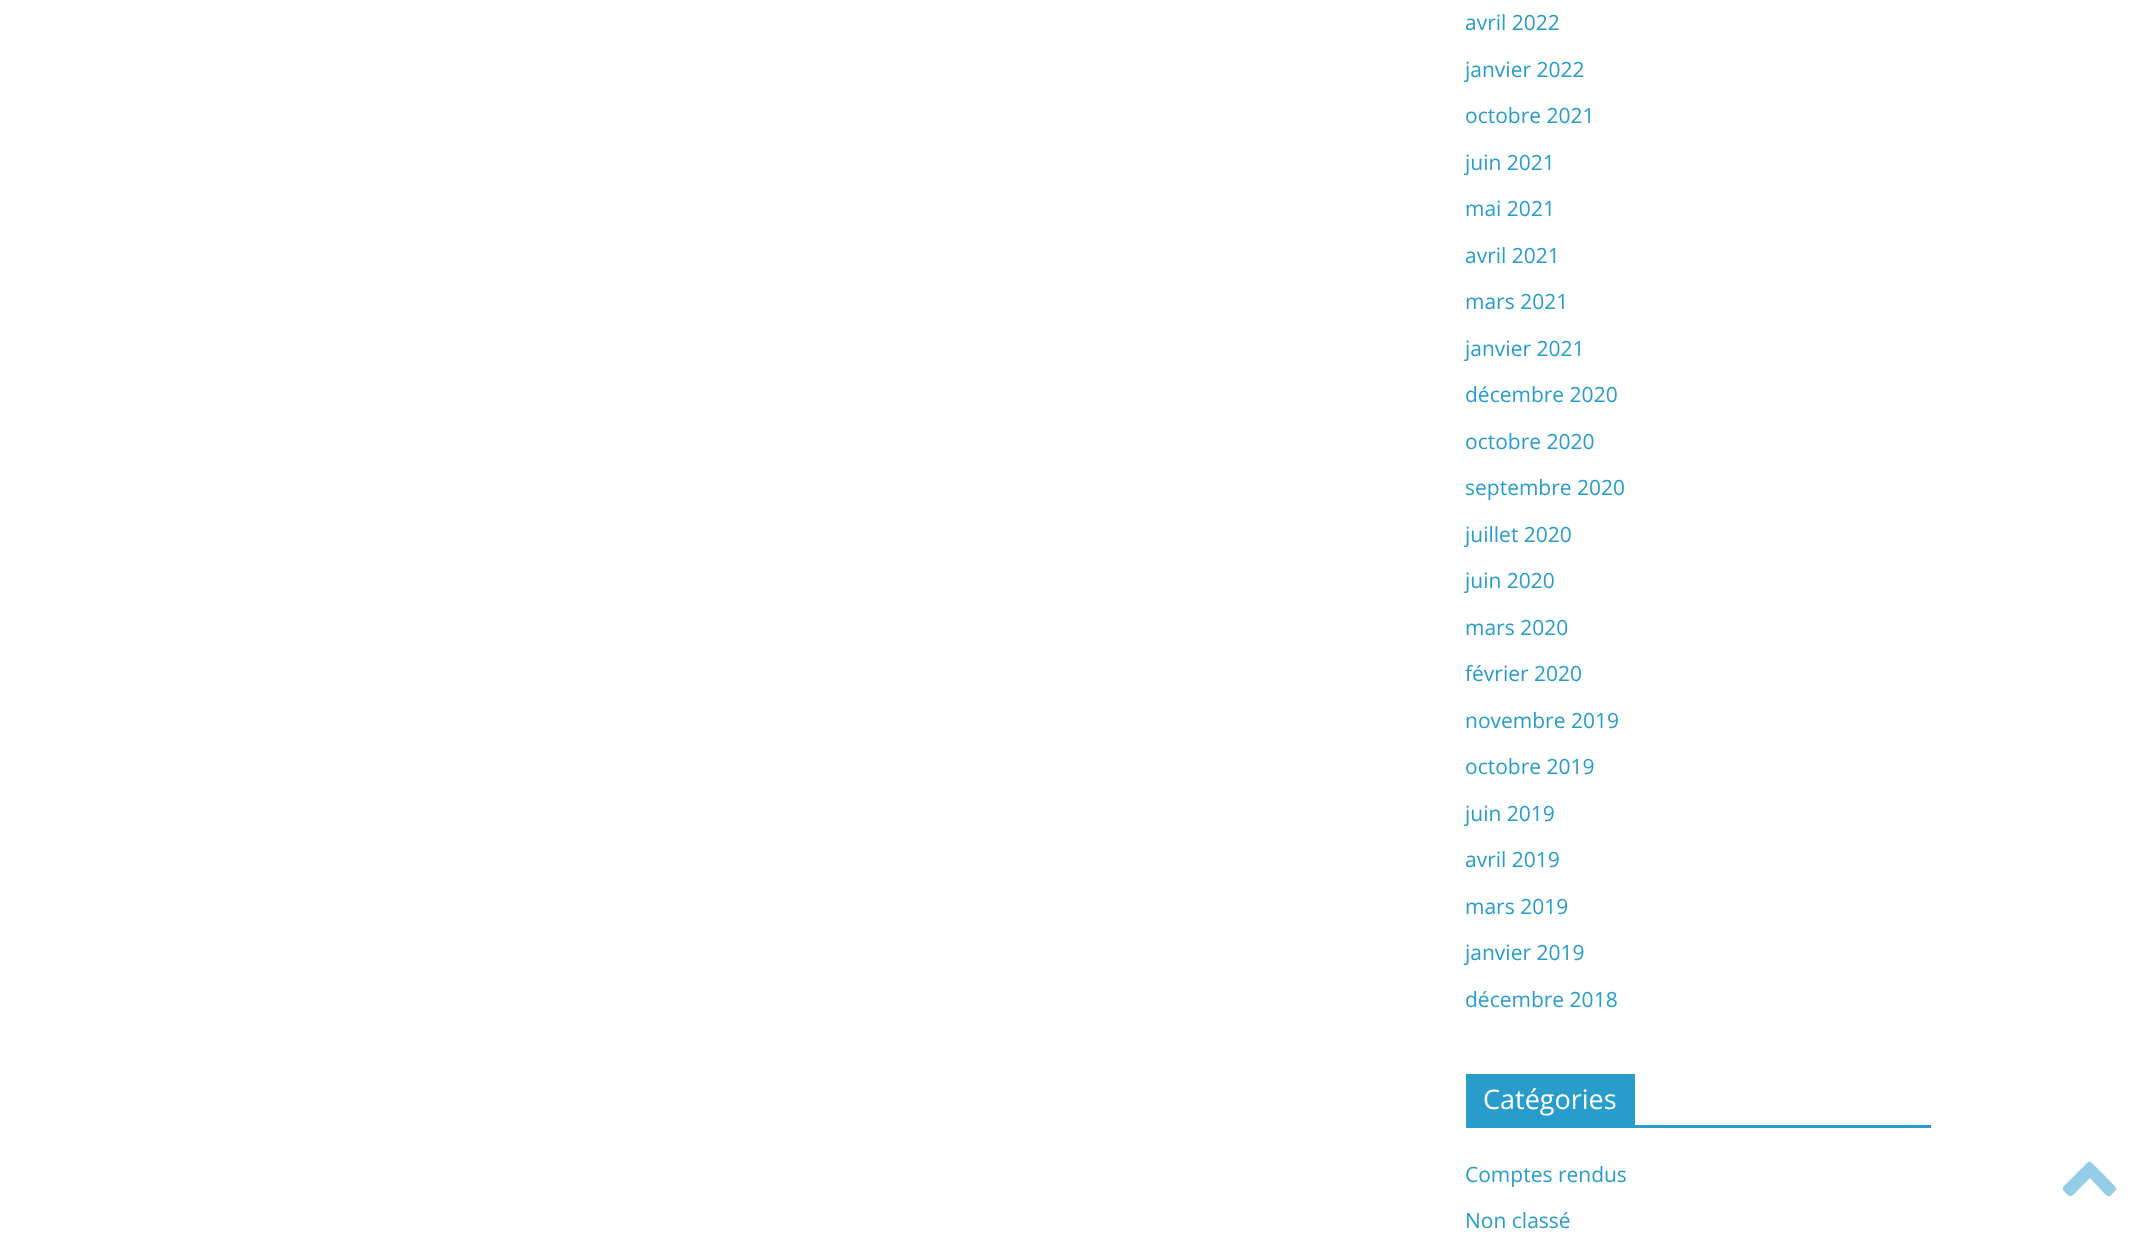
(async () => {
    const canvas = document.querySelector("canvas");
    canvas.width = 2149;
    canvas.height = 1239;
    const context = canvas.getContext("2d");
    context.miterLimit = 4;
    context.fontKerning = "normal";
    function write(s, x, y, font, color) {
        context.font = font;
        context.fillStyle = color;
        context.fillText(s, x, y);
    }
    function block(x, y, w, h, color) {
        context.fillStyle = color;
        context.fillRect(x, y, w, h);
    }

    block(0, 0, 2149, 1239, "rgb(255, 255, 255)");
    write("avril 2022", 1465, 30, "21px Open Sans", "rgb(40, 157, 204)");
    write("janvier 2022", 1465, 77, "21px Open Sans", "rgb(40, 157, 204)");
    write("octobre 2021", 1465, 123, "21px Open Sans", "rgb(40, 157, 204)");
    write("juin 2021", 1465, 170, "21px Open Sans", "rgb(40, 157, 204)");
    write("mai 2021", 1465, 216, "21px Open Sans", "rgb(40, 157, 204)");
    write("avril 2021", 1465, 263, "21px Open Sans", "rgb(40, 157, 204)");
    write("mars 2021", 1465, 309, "21px Open Sans", "rgb(40, 157, 204)");
    write("janvier 2021", 1465, 356, "21px Open Sans", "rgb(40, 157, 204)");
    write("décembre 2020", 1465, 402, "21px Open Sans", "rgb(40, 157, 204)");
    write("octobre 2020", 1465, 449, "21px Open Sans", "rgb(40, 157, 204)");
    write("septembre 2020", 1465, 495, "21px Open Sans", "rgb(40, 157, 204)");
    write("juillet 2020", 1465, 542, "21px Open Sans", "rgb(40, 157, 204)");
    write("juin 2020", 1465, 588, "21px Open Sans", "rgb(40, 157, 204)");
    write("mars 2020", 1465, 635, "21px Open Sans", "rgb(40, 157, 204)");
    write("février 2020", 1465, 681, "21px Open Sans", "rgb(40, 157, 204)");
    write("novembre 2019", 1465, 728, "21px Open Sans", "rgb(40, 157, 204)");
    write("octobre 2019", 1465, 774, "21px Open Sans", "rgb(40, 157, 204)");
    write("juin 2019", 1465, 821, "21px Open Sans", "rgb(40, 157, 204)");
    write("avril 2019", 1465, 867, "21px Open Sans", "rgb(40, 157, 204)");
    write("mars 2019", 1465, 914, "21px Open Sans", "rgb(40, 157, 204)");
    write("janvier 2019", 1465, 960, "21px Open Sans", "rgb(40, 157, 204)");
    write("décembre 2018", 1465, 1007, "21px Open Sans", "rgb(40, 157, 204)");
    block(1466, 1125, 465, 3, "rgb(40, 157, 204)");
    block(1466, 1074, 169, 51, "rgb(40, 157, 204)");
    write("Catégories", 1483, 1109, "27px Open Sans", "rgb(255, 255, 255)");
    write("Comptes rendus", 1465, 1182, "21px Open Sans", "rgb(40, 157, 204)");
    write("Non classé", 1465, 1228, "21px Open Sans", "rgb(40, 157, 204)");
    context.fillStyle = "rgb(148, 206, 230)";
    context.beginPath();
    context.moveTo(2116, 1190);
    context.bezierCurveTo(2110, 1196, 2110, 1199, 2104, 1193);
    context.lineTo(2090, 1178);
    context.lineTo(2075, 1193);
    context.bezierCurveTo(2069, 1198, 2070, 1197, 2064, 1191);
    context.bezierCurveTo(2061, 1188, 2064, 1186, 2067, 1183);
    context.lineTo(2084, 1166);
    context.bezierCurveTo(2090, 1160, 2089, 1160, 2095, 1166);
    context.lineTo(2112, 1183);
    context.bezierCurveTo(2112, 1184, 2118, 1188, 2116, 1190);
    context.closePath();
    context.fill();
})();
